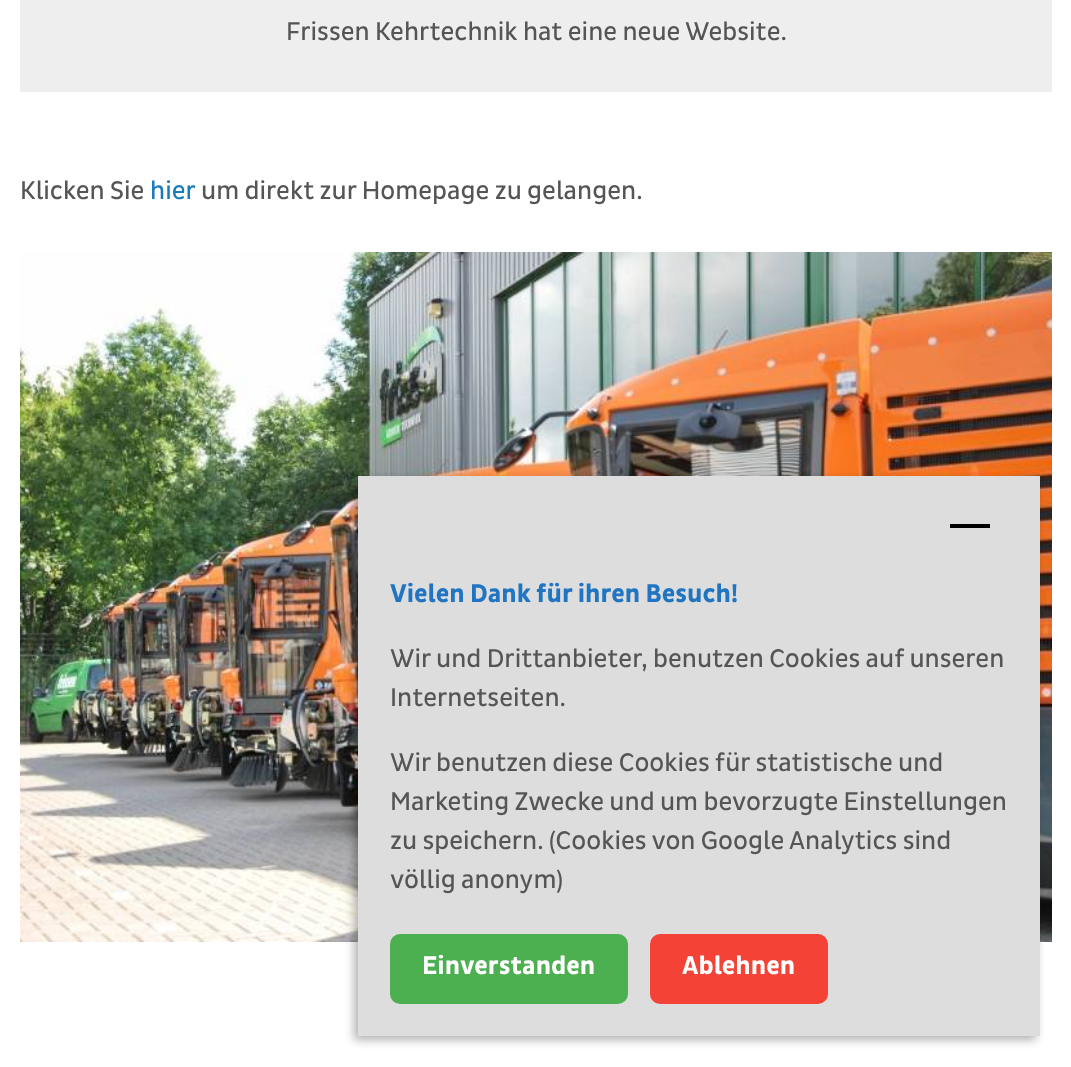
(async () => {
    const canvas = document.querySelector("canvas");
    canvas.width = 1071;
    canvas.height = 1067;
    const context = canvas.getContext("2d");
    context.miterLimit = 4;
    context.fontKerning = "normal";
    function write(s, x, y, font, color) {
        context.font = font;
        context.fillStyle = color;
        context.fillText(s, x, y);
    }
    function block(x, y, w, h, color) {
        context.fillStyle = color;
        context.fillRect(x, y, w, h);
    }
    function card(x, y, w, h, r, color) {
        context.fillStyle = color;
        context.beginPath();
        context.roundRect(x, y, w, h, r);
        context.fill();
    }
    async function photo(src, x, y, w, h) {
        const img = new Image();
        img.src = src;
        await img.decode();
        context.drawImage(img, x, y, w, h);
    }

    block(0, 0, 1071, 1067, "rgb(255, 255, 255)");
    block(20, 0, 1032, 92, "rgb(238, 238, 238)");
    write("Frissen Kehrtechnik hat eine neue Website.", 286, 40, "26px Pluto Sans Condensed", "rgb(85, 85, 85)");
    write("Klicken Sie", 20, 199, "26px Pluto Sans Condensed", "rgb(85, 85, 85)");
    write("hier", 150, 199, "26px Pluto Sans Condensed", "rgb(24, 123, 188)");
    write("um direkt zur Homepage zu gelangen.", 201, 199, "26px Pluto Sans Condensed", "rgb(85, 85, 85)");
    await photo("media/1.png", 20, 252, 1032, 690);
    context.fillStyle = "rgba(0, 0, 0, 0.3)";
    context.filter = "blur(5px)";
    context.beginPath();
    context.rect(354, 480, 682, 560);
    context.fill();
    context.filter = "none";
    block(358, 476, 682, 560, "rgb(221, 221, 221)");
    block(950, 524, 40, 4, "rgb(0, 0, 0)");
    write("Vielen Dank für ihren Besuch!", 390, 602, "26px 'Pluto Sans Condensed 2'", "rgb(31, 117, 193)");
    write("Wir und Drittanbieter, benutzen Cookies auf unseren", 390, 667, "26px Pluto Sans Condensed", "rgb(85, 85, 85)");
    write("Internetseiten.", 390, 706, "26px Pluto Sans Condensed", "rgb(85, 85, 85)");
    write("Wir benutzen diese Cookies für statistische und", 390, 771, "26px Pluto Sans Condensed", "rgb(85, 85, 85)");
    write("Marketing Zwecke und um bevorzugte Einstellungen", 390, 810, "26px Pluto Sans Condensed", "rgb(85, 85, 85)");
    write("zu speichern. (Cookies von Google Analytics sind", 390, 849, "26px Pluto Sans Condensed", "rgb(85, 85, 85)");
    write("völlig anonym)", 390, 888, "26px Pluto Sans Condensed", "rgb(85, 85, 85)");
    card(390, 934, 238, 70, 10, "rgb(76, 175, 80)");
    write("Einverstanden", 422, 974, "26px 'Pluto Sans Condensed 2'", "rgb(255, 255, 255)");
    card(650, 934, 178, 70, 10, "rgb(244, 67, 54)");
    write("Ablehnen", 682, 974, "26px 'Pluto Sans Condensed 2'", "rgb(255, 255, 255)");
})();
